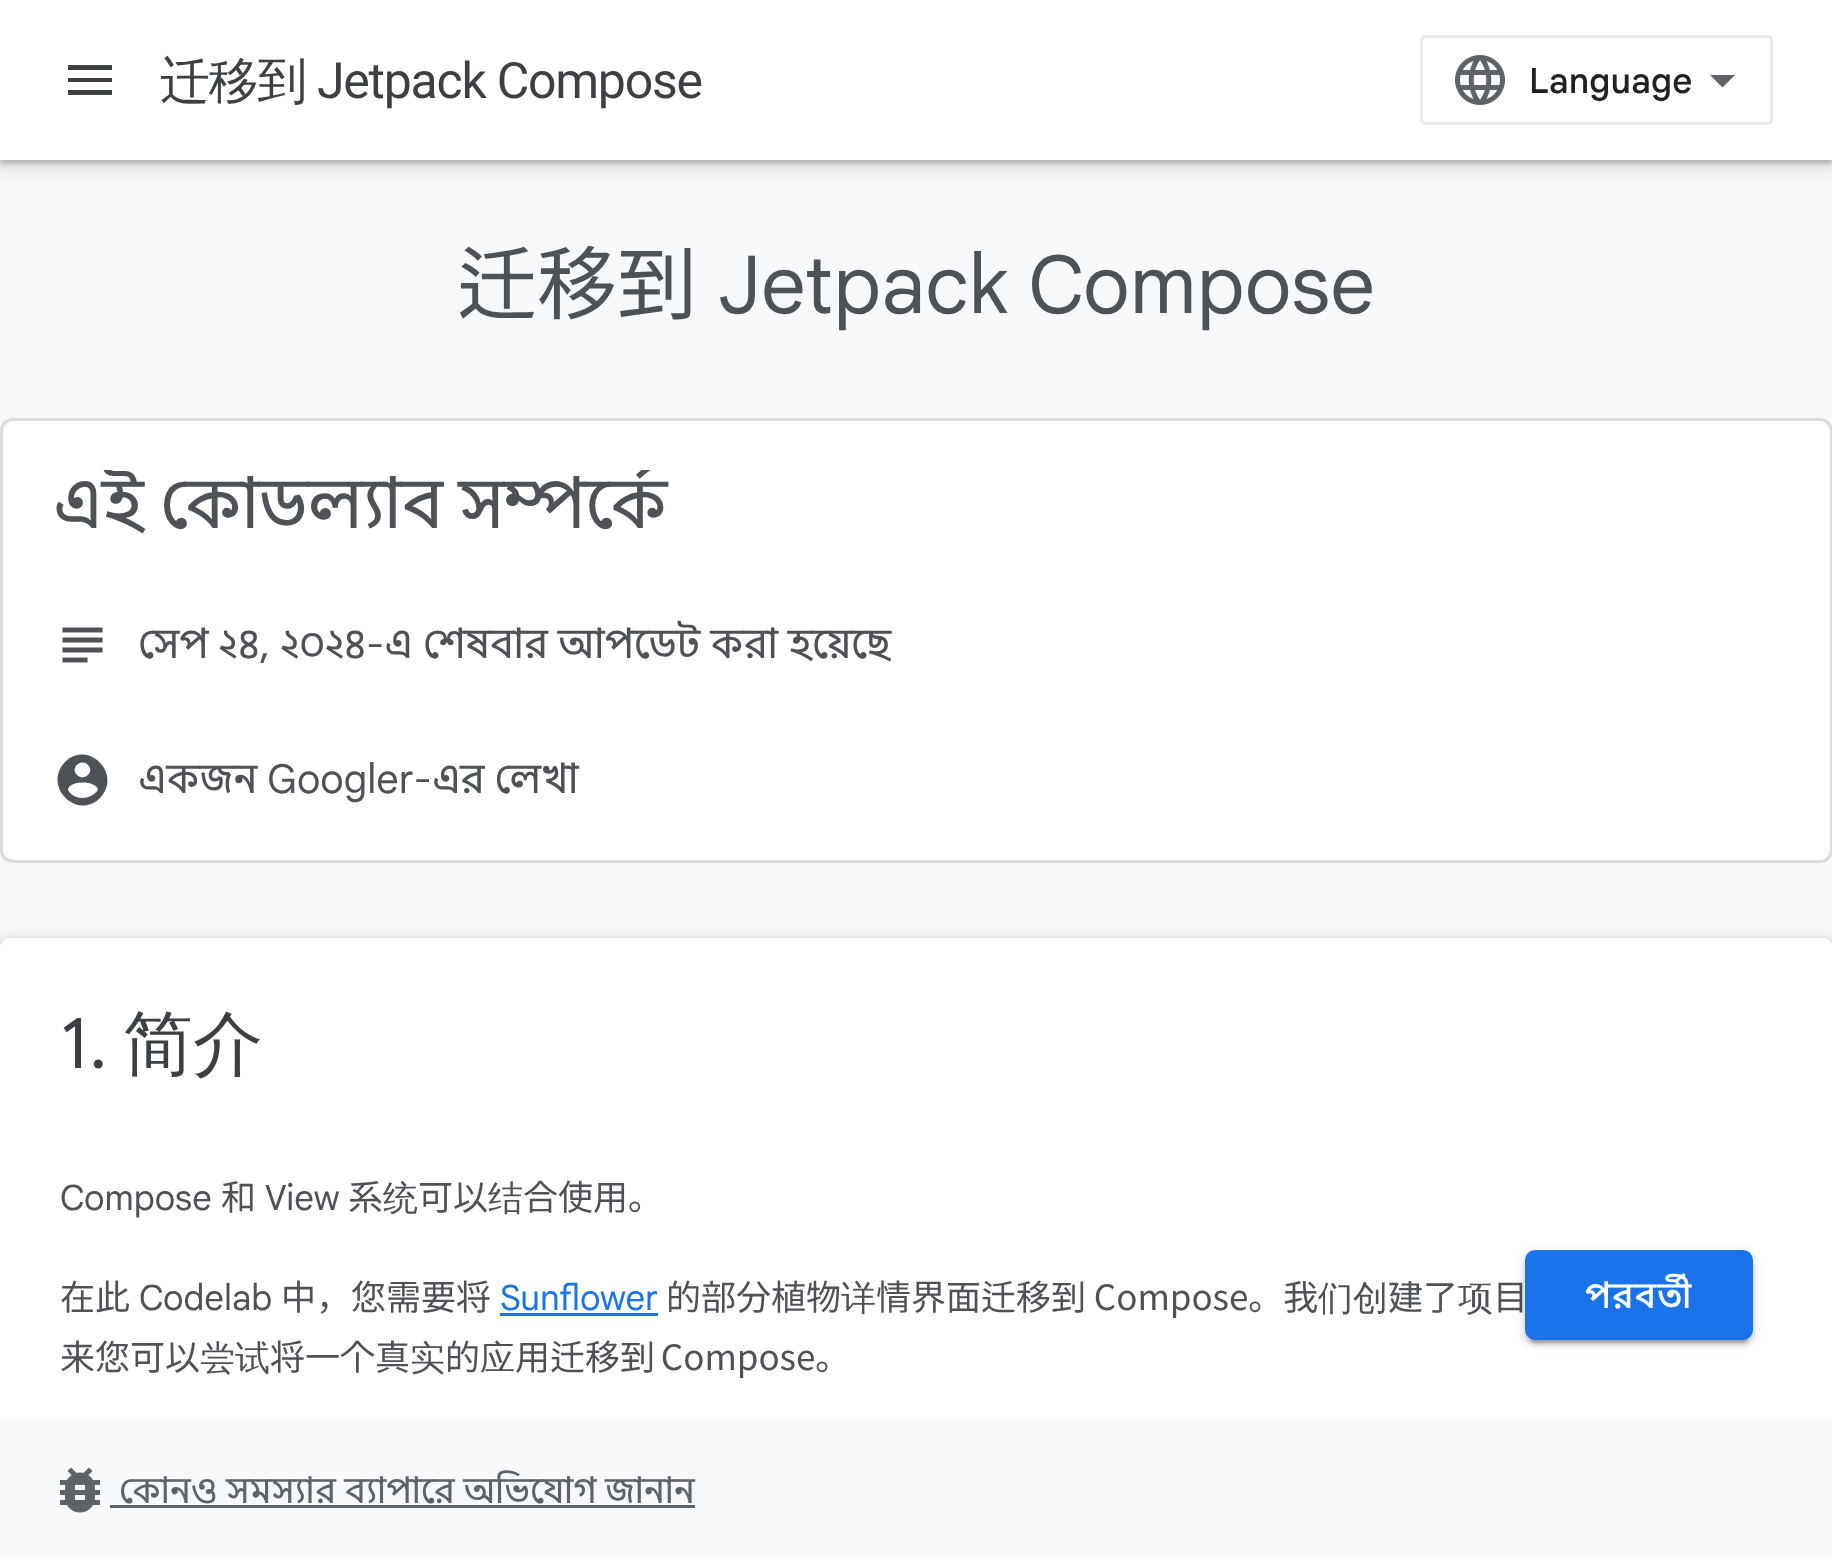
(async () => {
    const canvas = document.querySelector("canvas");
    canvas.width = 1832;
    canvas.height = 1559;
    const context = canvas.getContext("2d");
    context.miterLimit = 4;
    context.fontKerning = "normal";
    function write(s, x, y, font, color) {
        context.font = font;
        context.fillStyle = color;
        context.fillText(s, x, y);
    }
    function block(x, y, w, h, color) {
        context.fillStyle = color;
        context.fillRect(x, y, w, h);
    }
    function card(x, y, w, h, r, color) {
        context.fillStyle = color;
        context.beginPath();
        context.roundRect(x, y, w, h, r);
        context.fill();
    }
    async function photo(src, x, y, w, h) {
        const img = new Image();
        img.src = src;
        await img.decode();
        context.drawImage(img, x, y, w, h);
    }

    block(0, 0, 1832, 1559, "rgb(248, 249, 250)");
    context.fillStyle = "rgba(60, 64, 67, 0.15)";
    context.filter = "blur(7.5px)";
    context.beginPath();
    context.rect(-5, 0, 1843, 170);
    context.fill();
    context.filter = "none";
    context.fillStyle = "rgba(60, 64, 67, 0.3)";
    context.filter = "blur(2.5px)";
    context.beginPath();
    context.rect(0, 3, 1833, 160);
    context.fill();
    context.filter = "none";
    block(0, 0, 1832, 160, "rgb(255, 255, 255)");
    context.fillStyle = "rgb(60, 64, 67)";
    context.beginPath();
    context.moveTo(68, 65);
    context.lineTo(112, 65);
    context.lineTo(112, 70);
    context.lineTo(68, 70);
    context.closePath();
    context.moveTo(68, 82);
    context.lineTo(68, 78);
    context.lineTo(112, 78);
    context.lineTo(112, 82);
    context.closePath();
    context.moveTo(68, 95);
    context.lineTo(68, 90);
    context.lineTo(112, 90);
    context.lineTo(112, 95);
    context.closePath();
    context.fill();
    context.letterSpacing = "-1.25px";
    write("迁移到", 160, 98, "500 50px WenQuanYi Zen Hei", "rgb(60, 64, 67)");
    write("Jetpack Compose", 317, 98, "50px Roboto", "rgb(60, 64, 67)");
    context.beginPath();
    context.roundRect(1421.5, 36.5, 350, 87, 3.5);
    context.strokeStyle = "rgb(232, 234, 237)";
    context.lineWidth = 3;
    context.stroke();
    await photo("media/1.png", 1455, 55, 50, 50);
    context.letterSpacing = "0px";
    write("Language", 1529, 93, "500 35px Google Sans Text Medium", "rgb(32, 33, 36)");
    context.fillStyle = "rgb(95, 99, 104)";
    context.beginPath();
    context.moveTo(1722.5, 87.5);
    context.lineTo(1710, 75);
    context.lineTo(1735, 75);
    context.closePath();
    context.fill();
    write("迁移到", 457, 313, "80px Noto Sans JP", "rgb(78, 82, 86)");
    write("Jetpack Compose", 718, 313, "80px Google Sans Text", "rgb(78, 82, 86)");
    context.fillStyle = "rgb(255, 255, 255)";
    context.beginPath();
    context.roundRect(1.5, 419.5, 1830, 442, 11.5);
    context.fill();
    context.strokeStyle = "rgb(218, 220, 224)";
    context.stroke();
    context.save();
    context.beginPath();
    context.rect(53, 470, 1727, 70);
    context.clip();
    write("এই কোডল্যাব সম্পর্কে", 53, 528, "70px Google Sans", "rgb(78, 82, 86)");
    context.restore();
    await photo("media/2.png", 62, 627, 41, 36);
    write("সেপ ২৪, ২০২৪-এ শেষবার আপডেট করা হয়েছে", 138, 658, "40px Google Sans Text", "rgb(78, 82, 86)");
    context.beginPath();
    context.moveTo(74, 796);
    context.bezierCurveTo(82, 800, 92, 798, 98, 790);
    context.bezierCurveTo(97, 780, 68, 780, 68, 790);
    context.bezierCurveTo(69, 792, 71, 794, 74, 796);
    context.closePath();
    context.moveTo(88, 765);
    context.bezierCurveTo(81, 758, 70, 768, 77, 775);
    context.bezierCurveTo(84, 782, 95, 772, 88, 765);
    context.closePath();
    context.moveTo(65, 762);
    context.bezierCurveTo(88, 739, 123, 774, 100, 798);
    context.bezierCurveTo(77, 821, 42, 786, 65, 762);
    context.closePath();
    context.fill();
    write("একজন Googler-এর লেখা", 138, 793, "40px Google Sans Text", "rgb(78, 82, 86)");
    await photo("media/3.png", 59, 1467, 42, 46);
    block(110, 1505, 585, 3, "rgb(95, 99, 104)");
    context.save();
    context.beginPath();
    context.moveTo(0, 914);
    context.lineTo(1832, 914);
    context.lineTo(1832, 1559);
    context.lineTo(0, 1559);
    context.closePath();
    context.moveTo(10, 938);
    context.lineTo(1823, 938);
    context.bezierCurveTo(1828.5, 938, 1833, 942.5, 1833, 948);
    context.lineTo(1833, 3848);
    context.bezierCurveTo(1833, 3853.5, 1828.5, 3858, 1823, 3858);
    context.lineTo(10, 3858);
    context.bezierCurveTo(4.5, 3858, 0, 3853.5, 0, 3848);
    context.lineTo(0, 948);
    context.bezierCurveTo(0, 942.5, 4.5, 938, 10, 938);
    context.closePath();
    context.clip("evenodd");
    context.fillStyle = "rgba(60, 64, 67, 0.15)";
    context.filter = "blur(7.5px)";
    context.beginPath();
    context.roundRect(-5, 938, 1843, 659, 15);
    context.fill();
    context.filter = "none";
    context.restore();
    context.save();
    context.beginPath();
    context.moveTo(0, 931);
    context.lineTo(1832, 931);
    context.lineTo(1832, 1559);
    context.lineTo(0, 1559);
    context.closePath();
    context.moveTo(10, 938);
    context.lineTo(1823, 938);
    context.bezierCurveTo(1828.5, 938, 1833, 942.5, 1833, 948);
    context.lineTo(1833, 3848);
    context.bezierCurveTo(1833, 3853.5, 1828.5, 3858, 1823, 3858);
    context.lineTo(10, 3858);
    context.bezierCurveTo(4.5, 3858, 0, 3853.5, 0, 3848);
    context.lineTo(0, 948);
    context.bezierCurveTo(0, 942.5, 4.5, 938, 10, 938);
    context.closePath();
    context.clip("evenodd");
    context.fillStyle = "rgba(60, 64, 67, 0.3)";
    context.filter = "blur(2.5px)";
    context.beginPath();
    context.roundRect(0, 940, 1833, 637, 10);
    context.fill();
    context.filter = "none";
    context.restore();
    context.fillStyle = "rgb(255, 255, 255)";
    context.beginPath();
    context.moveTo(10, 938);
    context.lineTo(1823, 938);
    context.bezierCurveTo(1828.5, 938, 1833, 942.5, 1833, 948);
    context.lineTo(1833, 1420);
    context.lineTo(0, 1420);
    context.lineTo(0, 948);
    context.bezierCurveTo(0, 942.5, 4.5, 938, 10, 938);
    context.closePath();
    context.fill();
    write("1.", 60, 1068, "70px Google Sans", "rgb(60, 64, 67)");
    write("简介", 123, 1068, "500 70px WenQuanYi Zen Hei", "rgb(60, 64, 67)");
    write("Compose", 60, 1210, "35px Google Sans Text", "rgb(78, 82, 86)");
    write("和", 221, 1210, "35px Noto Sans JP", "rgb(78, 82, 86)");
    write("View", 265, 1210, "35px Google Sans Text", "rgb(78, 82, 86)");
    write("系", 348, 1210, "35px Noto Sans JP", "rgb(78, 82, 86)");
    write("统", 383, 1210, "500 35px WenQuanYi Zen Hei", "rgb(78, 82, 86)");
    write("可以", 418, 1210, "35px Noto Sans JP", "rgb(78, 82, 86)");
    write("结", 488, 1210, "500 35px WenQuanYi Zen Hei", "rgb(78, 82, 86)");
    write("合使用。", 523, 1210, "35px Noto Sans JP", "rgb(78, 82, 86)");
    write("在此", 60, 1310, "35px Noto Sans JP", "rgb(78, 82, 86)");
    write("Codelab", 139, 1310, "35px Google Sans Text", "rgb(78, 82, 86)");
    write("中，您需要将", 281, 1310, "35px Noto Sans JP", "rgb(78, 82, 86)");
    write("Sunflower", 500, 1310, "35px Google Sans Text", "rgb(26, 115, 232)");
    block(500, 1313, 158, 3, "rgb(26, 115, 232)");
    write("的部分植物", 666, 1310, "35px Noto Sans JP", "rgb(78, 82, 86)");
    write("详", 841, 1310, "500 35px WenQuanYi Zen Hei", "rgb(78, 82, 86)");
    write("情界面迁移到 Compose。我", 876, 1310, "35px Noto Sans JP", "rgb(78, 82, 86)");
    write("们创", 1318, 1310, "500 35px WenQuanYi Zen Hei", "rgb(78, 82, 86)");
    write("建了", 1388, 1310, "35px Noto Sans JP", "rgb(78, 82, 86)");
    write("项", 1458, 1310, "500 35px WenQuanYi Zen Hei", "rgb(78, 82, 86)");
    write("目", 1493, 1310, "35px Noto Sans JP", "rgb(78, 82, 86)");
    write("来您可以", 60, 1370, "35px Noto Sans JP", "rgb(78, 82, 86)");
    write("尝试", 200, 1370, "500 35px WenQuanYi Zen Hei", "rgb(78, 82, 86)");
    write("将一个真", 270, 1370, "35px Noto Sans JP", "rgb(78, 82, 86)");
    write("实", 410, 1370, "500 35px WenQuanYi Zen Hei", "rgb(78, 82, 86)");
    write("的", 445, 1370, "35px Noto Sans JP", "rgb(78, 82, 86)");
    write("应", 480, 1370, "500 35px WenQuanYi Zen Hei", "rgb(78, 82, 86)");
    context.wordSpacing = "-2px";
    write("用迁移到 Compose。", 515, 1370, "35px Noto Sans JP", "rgb(78, 82, 86)");
    context.fillStyle = "rgba(0, 0, 0, 0.2)";
    context.filter = "blur(1px)";
    context.beginPath();
    context.roundRect(1530, 1263, 218, 80, 5);
    context.fill();
    context.filter = "none";
    context.fillStyle = "rgba(0, 0, 0, 0.12)";
    context.filter = "blur(6px)";
    context.beginPath();
    context.roundRect(1525, 1253, 228, 90, 10);
    context.fill();
    context.filter = "none";
    context.fillStyle = "rgba(0, 0, 0, 0.14)";
    context.filter = "blur(2.5px)";
    context.beginPath();
    context.roundRect(1525, 1255, 228, 90, 10);
    context.fill();
    context.filter = "none";
    card(1525, 1250, 228, 90, 10, "rgb(26, 115, 232)");
    context.letterSpacing = "1.5px";
    context.wordSpacing = "0px";
    write("পরবর্তী", 1585, 1308, "600 35px Google Sans", "rgb(255, 255, 255)");
    context.letterSpacing = "0px";
    write("কোনও সমস্যার ব্যাপারে অভিযোগ জানান", 119, 1503, "35px Google Sans Text", "rgb(95, 99, 104)");
})();
